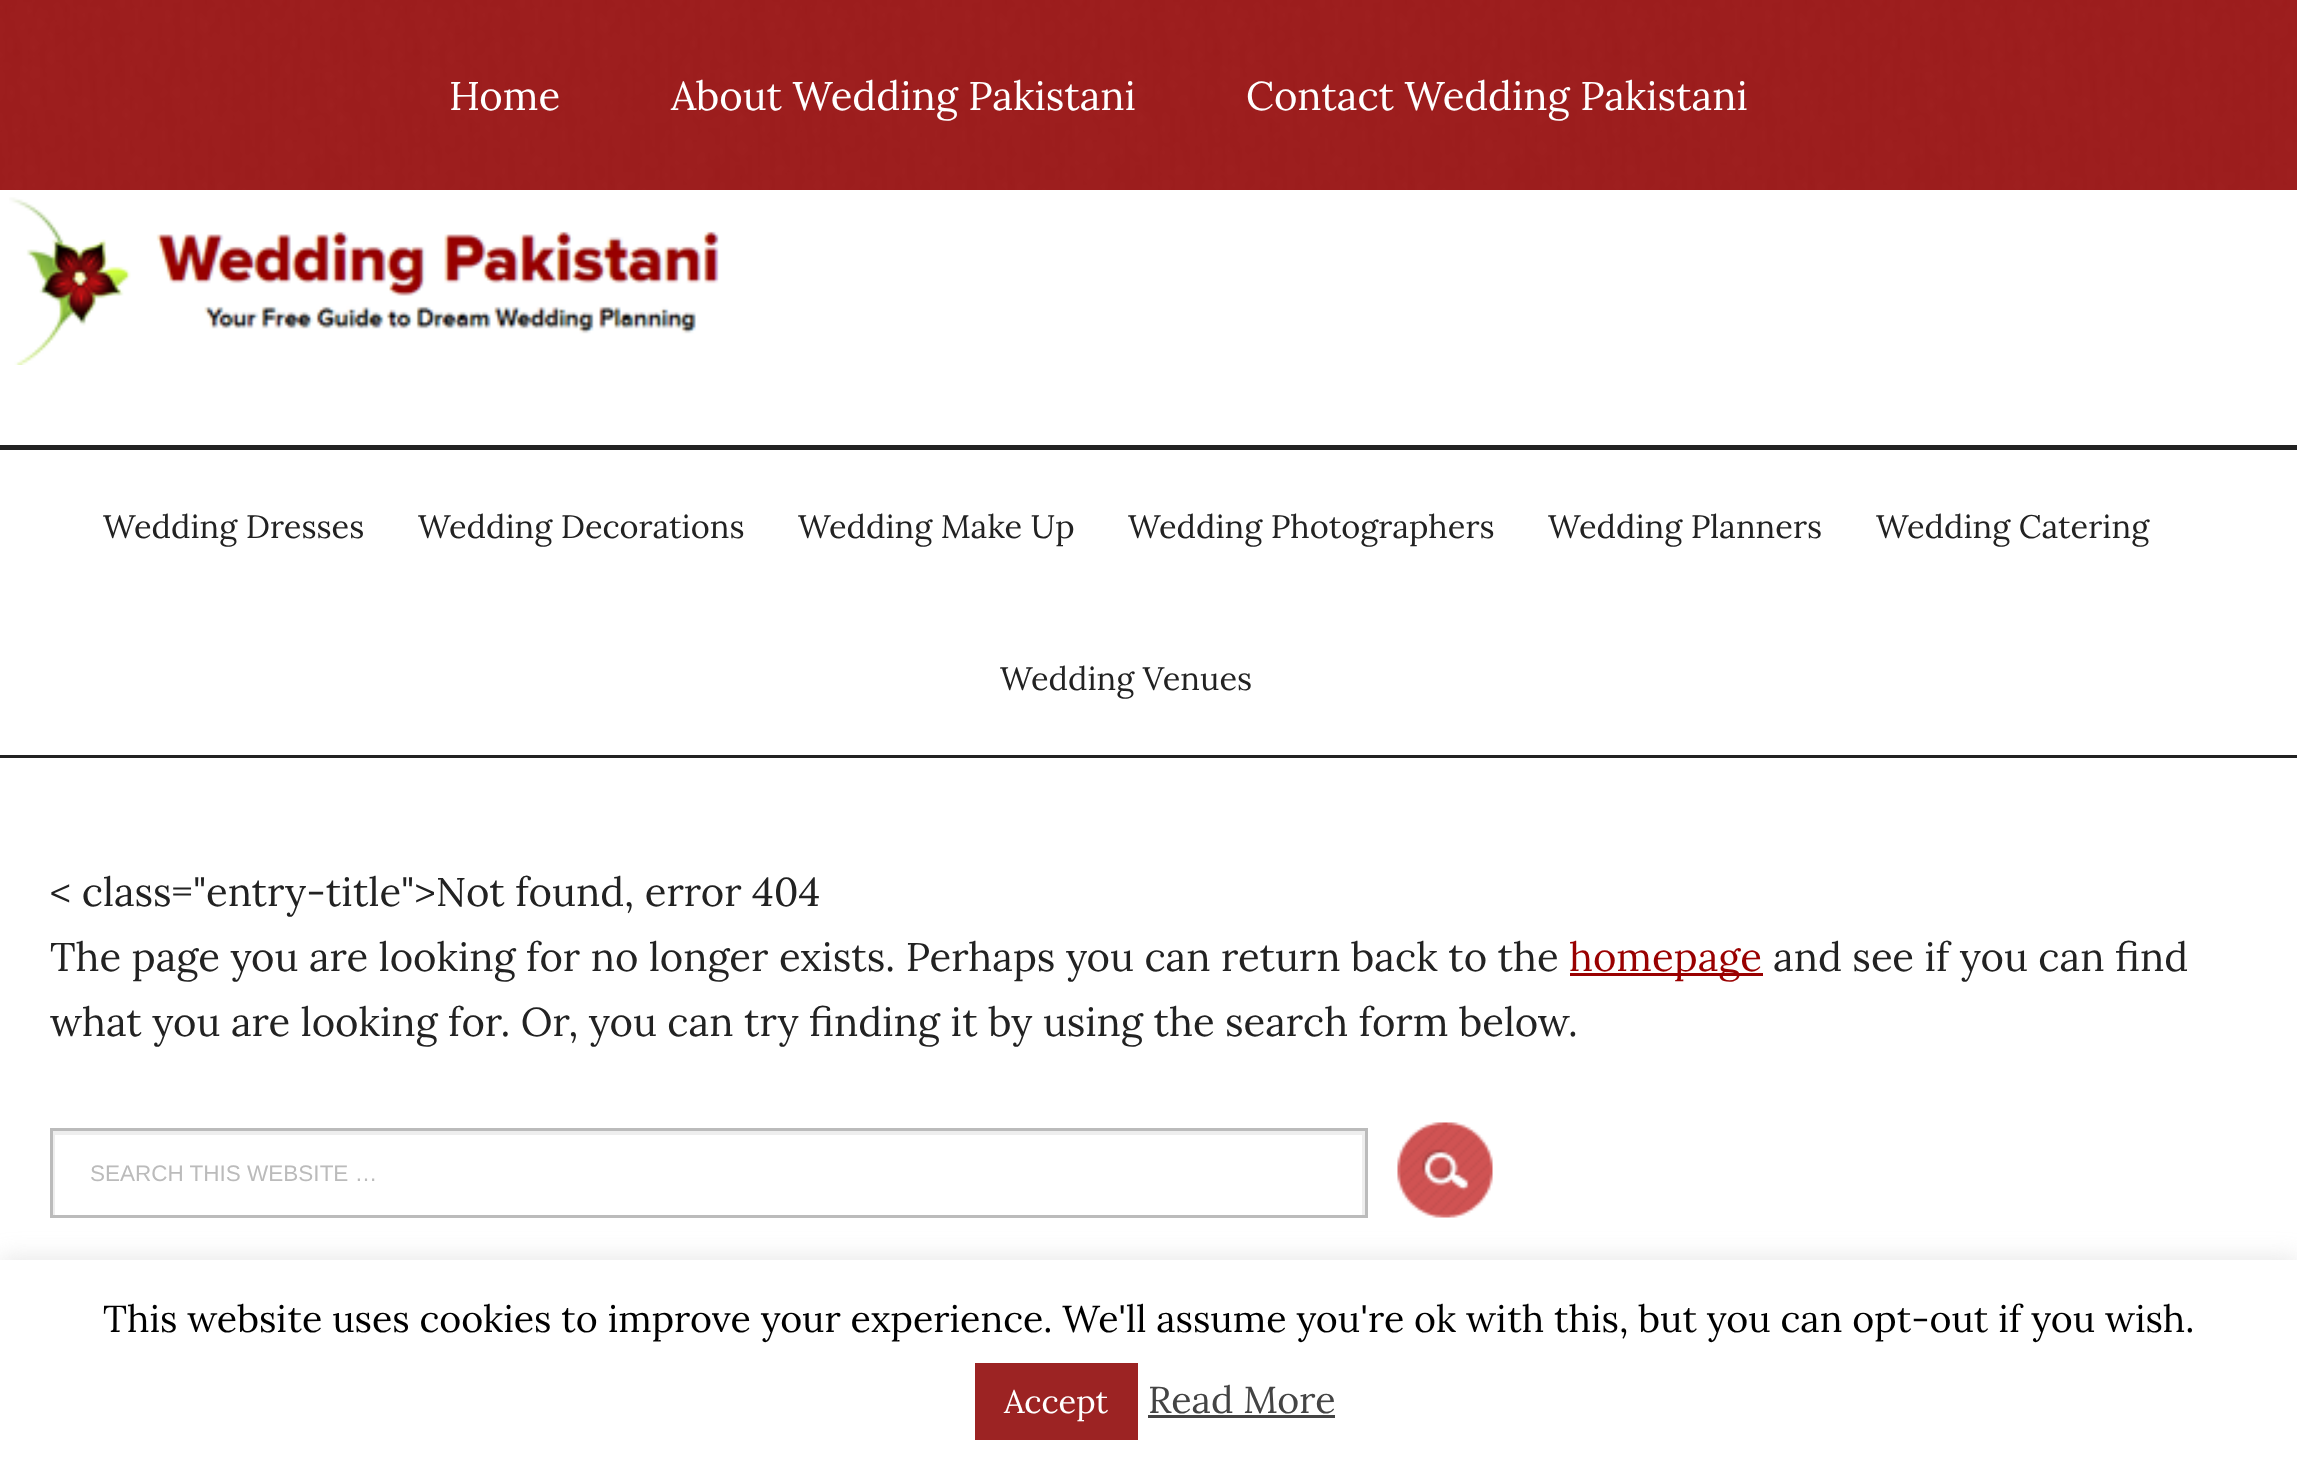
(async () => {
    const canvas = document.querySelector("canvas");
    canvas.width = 2297;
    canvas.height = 1470;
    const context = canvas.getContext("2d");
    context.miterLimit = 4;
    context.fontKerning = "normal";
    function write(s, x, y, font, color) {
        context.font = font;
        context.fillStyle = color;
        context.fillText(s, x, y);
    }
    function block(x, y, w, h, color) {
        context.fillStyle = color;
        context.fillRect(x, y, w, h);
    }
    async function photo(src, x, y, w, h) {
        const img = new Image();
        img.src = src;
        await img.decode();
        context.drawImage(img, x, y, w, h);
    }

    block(0, 0, 2297, 1470, "rgb(255, 255, 255)");
    await photo("media/1.png", 0, 0, 2297, 190);
    write("Home", 449, 110, "40px Lora", "rgb(255, 255, 255)");
    write("About Wedding Pakistani", 671, 110, "40px Lora", "rgb(255, 255, 255)");
    write("Contact Wedding Pakistani", 1246, 110, "40px Lora", "rgb(255, 255, 255)");
    await photo("media/2.png", 9, 197, 711, 168);
    block(0, 445, 2297, 5, "rgb(34, 34, 34)");
    block(0, 755, 2297, 3, "rgb(34, 34, 34)");
    write("Wedding Dresses", 103, 538, "32.5px Lora", "rgb(34, 34, 34)");
    write("Wedding Decorations", 418, 538, "32.5px Lora", "rgb(34, 34, 34)");
    write("Wedding Make Up", 798, 538, "32.5px Lora", "rgb(34, 34, 34)");
    write("Wedding Photographers", 1128, 538, "32.5px Lora", "rgb(34, 34, 34)");
    write("Wedding Planners", 1548, 538, "32.5px Lora", "rgb(34, 34, 34)");
    write("Wedding Catering", 1876, 538, "32.5px Lora", "rgb(34, 34, 34)");
    write("Wedding Venues", 1000, 690, "32.5px Lora", "rgb(34, 34, 34)");
    write("< class=\"entry-title\">Not found, error 404", 50, 906, "40px Lora", "rgb(34, 34, 34)");
    write("The page you are looking for no longer exists. Perhaps you can return back to the", 50, 971, "40px Lora", "rgb(34, 34, 34)");
    block(1570, 973, 193, 3, "rgb(153, 0, 0)");
    write("homepage", 1569, 971, "40px Lora", "rgb(153, 0, 0)");
    write("and see if you can find", 1773, 971, "40px Lora", "rgb(34, 34, 34)");
    write("what you are looking for. Or, you can try finding it by using the search form below.", 50, 1036, "40px Lora", "rgb(34, 34, 34)");
    context.save();
    context.beginPath();
    context.rect(53, 1130, 1312, 85);
    context.clip();
    context.fillStyle = "rgb(238, 238, 238)";
    context.beginPath();
    context.moveTo(-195, 882);
    context.lineTo(1612, 882);
    context.lineTo(1612, 1462);
    context.lineTo(-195, 1462);
    context.closePath();
    context.moveTo(55, 1135);
    context.lineTo(1362, 1135);
    context.lineTo(1362, 1215);
    context.lineTo(55, 1215);
    context.closePath();
    context.fill("evenodd");
    context.restore();
    context.strokeStyle = "rgb(187, 187, 187)";
    context.lineWidth = 3;
    context.strokeRect(51.5, 1129.5, 1315, 87);
    write("SEARCH THIS WEBSITE …", 90, 1181, "22.5px Liberation Sans", "rgb(187, 187, 187)");
    await photo("media/3.png", 1397, 1122, 96, 96);
    context.fillStyle = "rgba(172, 171, 171, 0.3)";
    context.filter = "blur(12.5px)";
    context.beginPath();
    context.rect(0, 1258, 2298, 210);
    context.fill();
    context.filter = "none";
    block(0, 1260, 2297, 210, "rgb(255, 255, 255)");
    write("This website uses cookies to improve your experience. We'll assume you're ok with this, but you can opt-out if you wish.", 103, 1332, "37.5px Lora", "rgb(0, 0, 0)");
    block(975, 1363, 163, 77, "rgb(156, 35, 35)");
    write("Accept", 1004, 1413, "32.5px Lora", "rgb(255, 255, 255)");
    write("Read More", 1148, 1413, "37.5px Lora", "rgb(68, 68, 68)");
    block(1148, 1415, 187, 3, "rgb(68, 68, 68)");
})();
